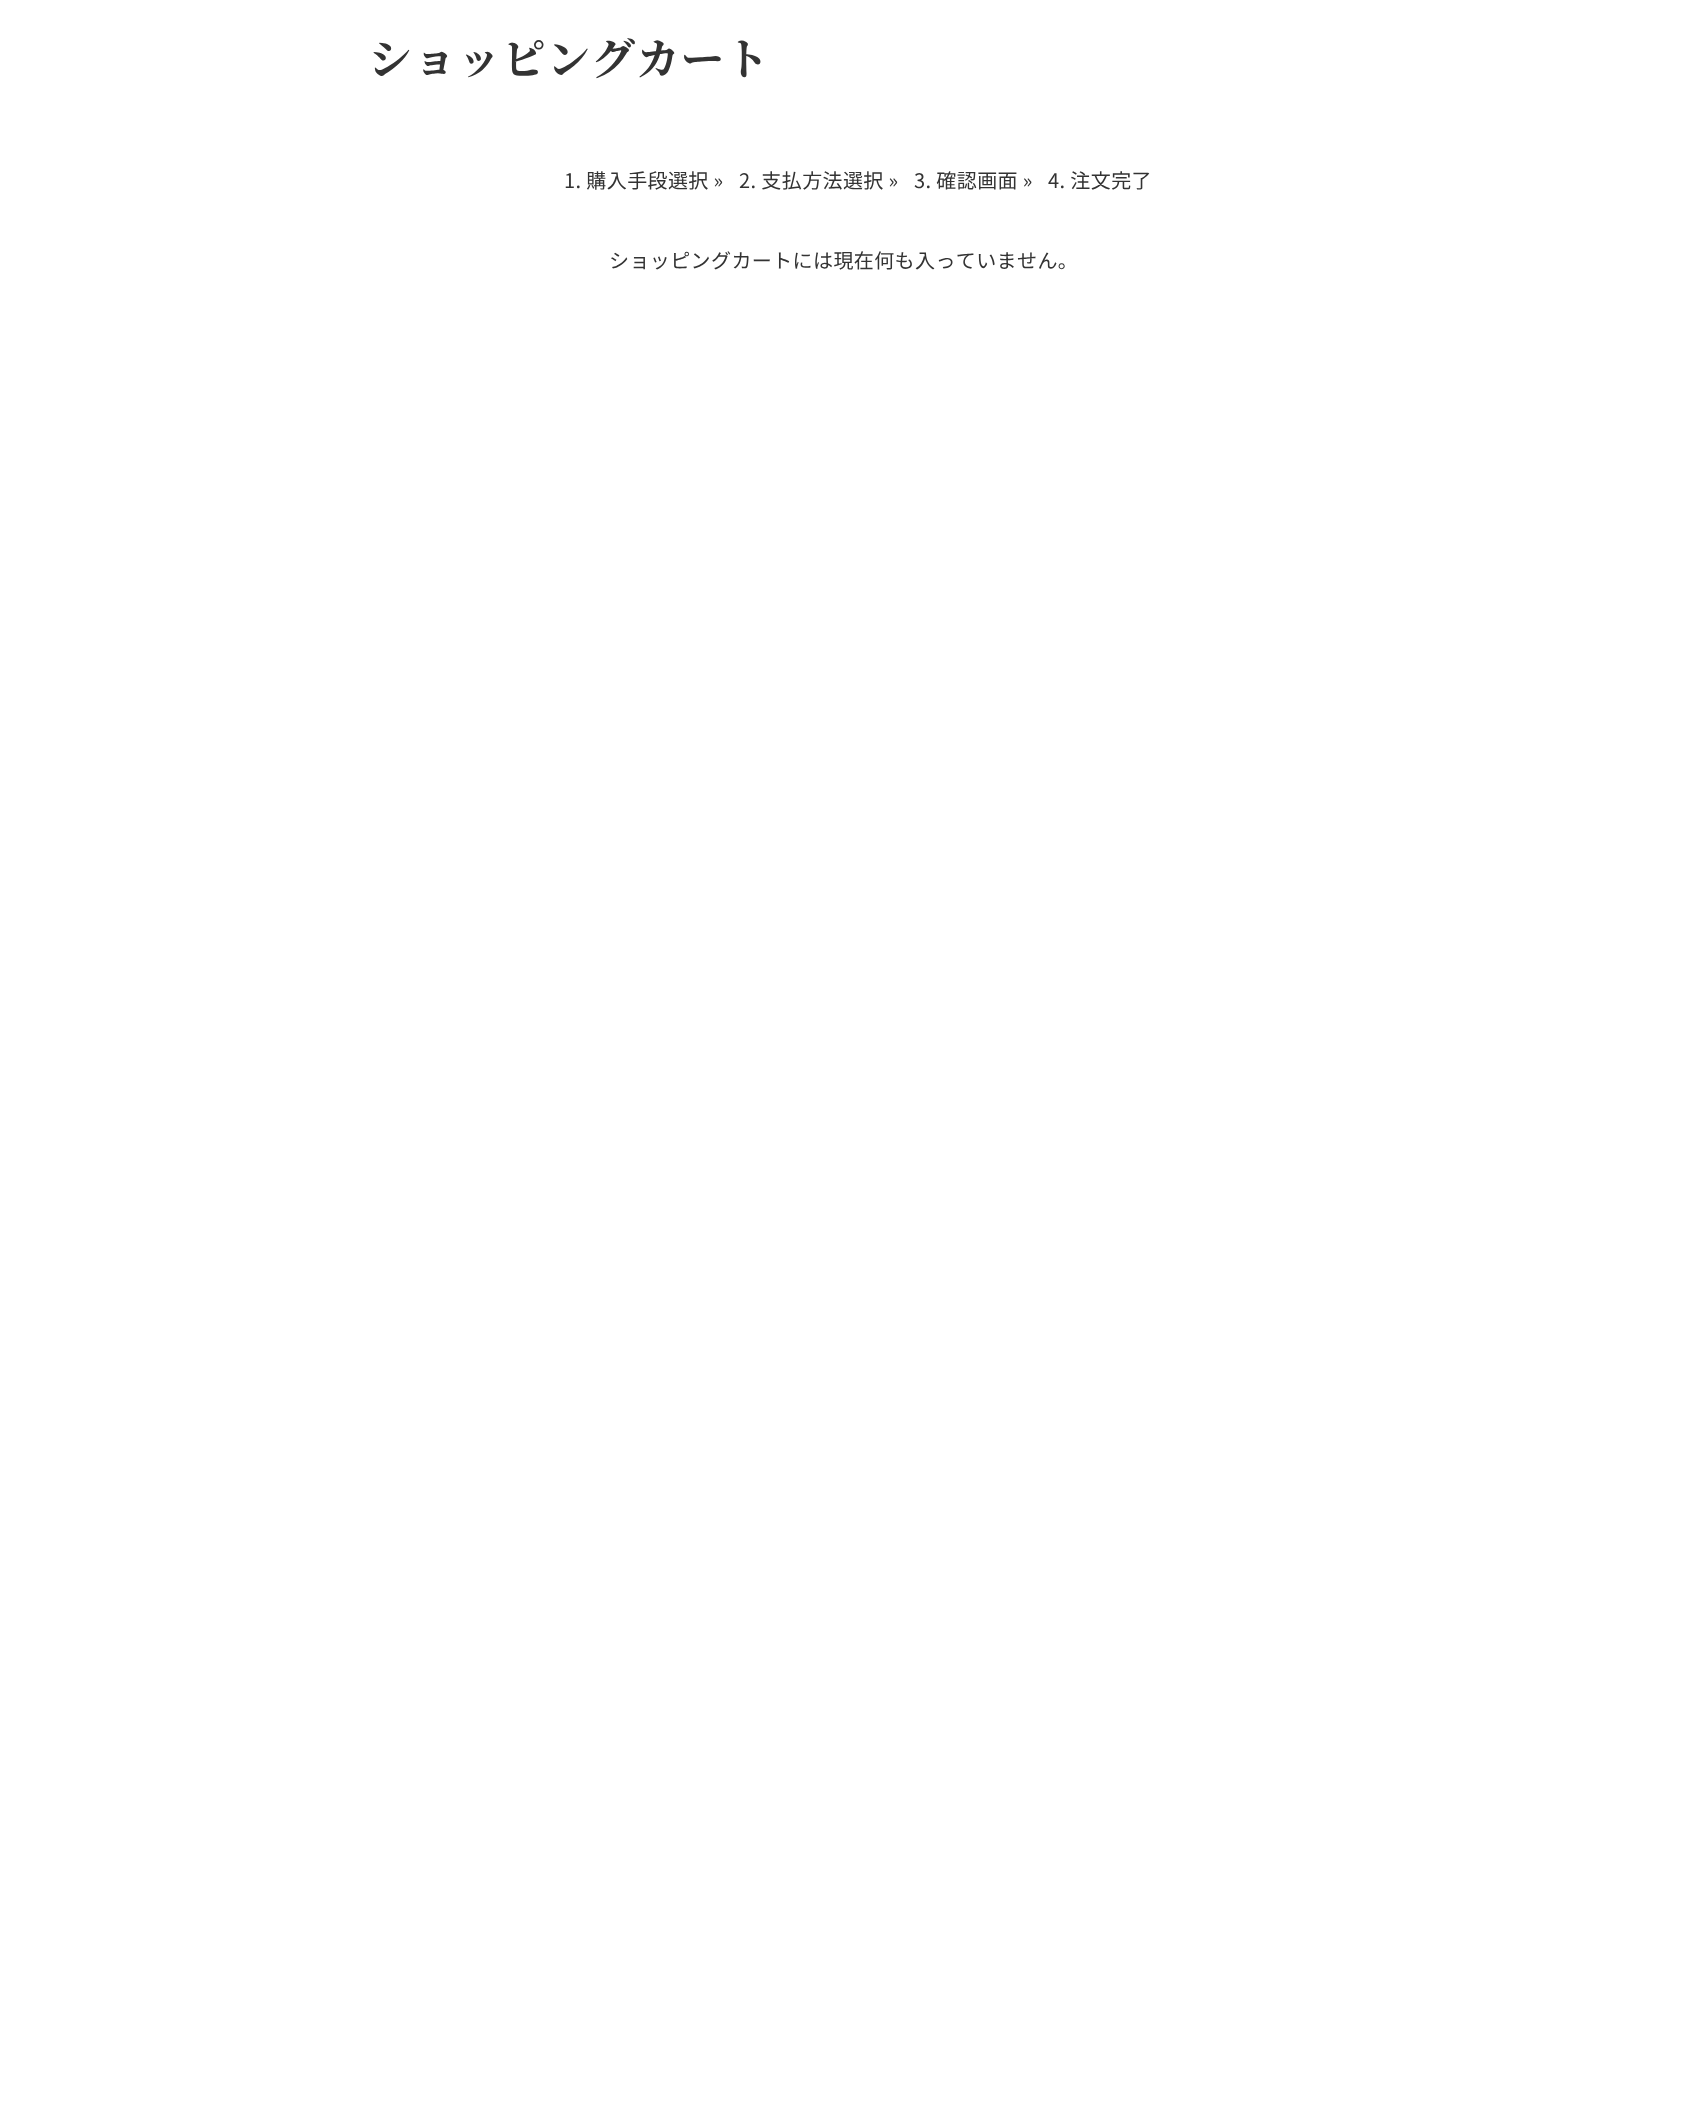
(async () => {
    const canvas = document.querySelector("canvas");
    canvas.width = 1686;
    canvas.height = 2103;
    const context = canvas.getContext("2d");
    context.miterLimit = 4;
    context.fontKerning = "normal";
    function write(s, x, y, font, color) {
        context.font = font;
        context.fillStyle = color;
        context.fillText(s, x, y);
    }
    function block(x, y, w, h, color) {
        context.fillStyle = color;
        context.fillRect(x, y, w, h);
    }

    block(0, 0, 1686, 2103, "rgb(255, 255, 255)");
    context.letterSpacing = "0.9px";
    write("ショッピングカート", 368, 75, "bold 43.75px Noto Serif JP", "rgb(51, 51, 51)");
    context.letterSpacing = "0.4px";
    write("1. 購入手段選択 »", 564, 188, "20px Noto Sans JP", "rgb(51, 51, 51)");
    write("2. 支払方法選択 »", 739, 188, "20px Noto Sans JP", "rgb(51, 51, 51)");
    write("3. 確認画面 »", 914, 188, "20px Noto Sans JP", "rgb(51, 51, 51)");
    write("4. 注文完了", 1048, 188, "20px Noto Sans JP", "rgb(51, 51, 51)");
    write("ショッピングカートには現在何も入っていません。", 609, 268, "20px Noto Sans JP", "rgb(51, 51, 51)");
})();
